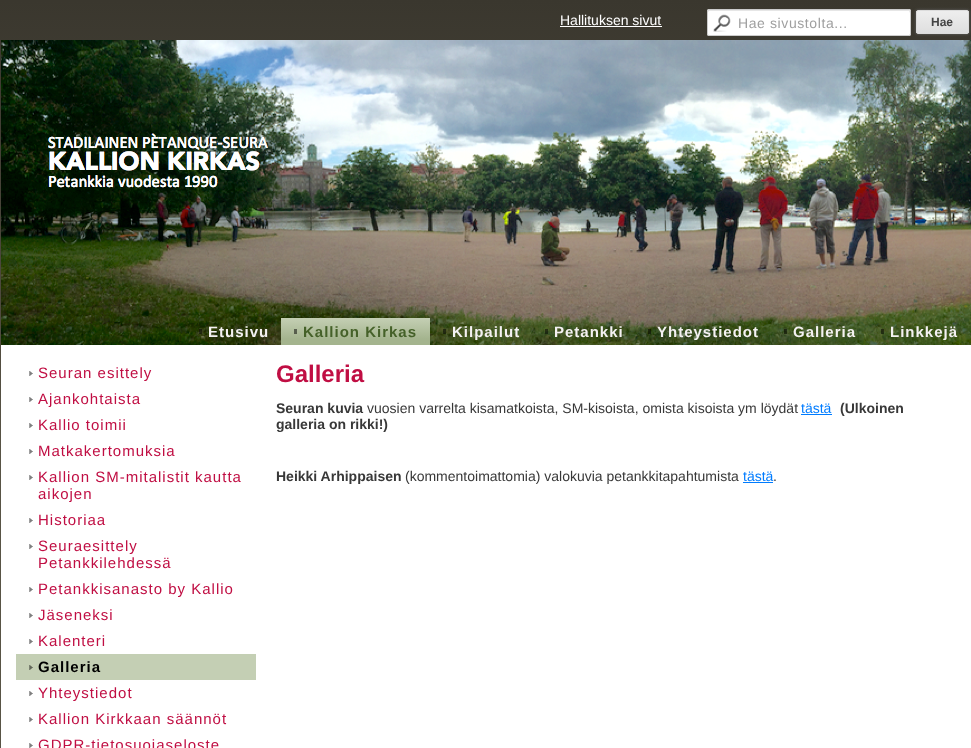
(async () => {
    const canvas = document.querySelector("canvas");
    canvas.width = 971;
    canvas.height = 748;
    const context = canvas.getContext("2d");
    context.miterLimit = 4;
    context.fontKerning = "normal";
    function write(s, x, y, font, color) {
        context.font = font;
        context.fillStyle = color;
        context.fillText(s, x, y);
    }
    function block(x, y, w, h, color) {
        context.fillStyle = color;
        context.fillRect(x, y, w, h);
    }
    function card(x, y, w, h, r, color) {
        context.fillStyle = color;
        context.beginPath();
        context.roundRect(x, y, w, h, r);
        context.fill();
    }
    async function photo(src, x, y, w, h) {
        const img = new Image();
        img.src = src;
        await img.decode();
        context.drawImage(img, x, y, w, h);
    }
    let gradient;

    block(0, 0, 971, 748, "rgb(255, 255, 255)");
    gradient = context.createLinearGradient(485, 0, 486, 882);
    gradient.addColorStop(0, "rgb(58, 55, 46)");
    gradient.addColorStop(0.51, "rgb(88, 83, 69)");
    gradient.addColorStop(1, "rgb(88, 83, 69)");
    context.fillStyle = gradient;
    context.fillRect(0, 0, 971, 748);
    write("Hallituksen sivut", 560, 25, "14px Liberation Sans", "rgb(255, 255, 255)");
    block(560, 26, 102, 1, "rgb(255, 255, 255)");
    card(707, 9, 204, 27, 2, "rgb(255, 255, 255)");
    await photo("media/1.png", 713, 14, 18, 18);
    context.fillStyle = "rgb(230, 230, 230)";
    context.beginPath();
    context.moveTo(709, 11);
    context.lineTo(909, 11);
    context.lineTo(910, 13);
    context.bezierCurveTo(910, 12, 910, 10, 909, 10);
    context.lineTo(708, 10);
    context.lineTo(708, 12);
    context.closePath();
    context.fill();
    context.beginPath();
    context.roundRect(707.5, 9.5, 203, 26, 1.5);
    context.strokeStyle = "rgb(204, 204, 204)";
    context.stroke();
    context.letterSpacing = "0.6px";
    write("Hae sivustolta...", 738, 28, "14px Liberation Sans", "rgb(159, 159, 159)");
    context.fillStyle = "rgb(102, 102, 102)";
    context.filter = "blur(1.5px)";
    context.beginPath();
    context.roundRect(916, 10, 53, 24, 2);
    context.fill();
    context.filter = "none";
    context.save();
    context.beginPath();
    context.roundRect(916, 10, 53, 24, 2);
    context.clip();
    gradient = context.createLinearGradient(917, 11, 917, 33);
    gradient.addColorStop(0.05, "rgb(237, 237, 237)");
    gradient.addColorStop(1, "rgb(223, 223, 223)");
    context.fillStyle = gradient;
    context.fillRect(916, 11, 53, 22);
    context.restore();
    context.beginPath();
    context.roundRect(916.5, 10.5, 52, 23, 1.5);
    context.strokeStyle = "rgb(220, 220, 220)";
    context.stroke();
    context.letterSpacing = "0px";
    write("Hae", 931, 26, "bold 12px Liberation Sans", "rgb(68, 68, 68)");
    await photo("media/2.png", 1, 40, 970, 305);
    block(199, 329, 3, 5, "rgba(0, 0, 0, 0.5)");
    context.letterSpacing = "1px";
    write("Etusivu", 208, 337, "bold 15px Liberation Sans", "rgb(244, 241, 242)");
    gradient = context.createLinearGradient(356, 318, 356, 345);
    gradient.addColorStop(0, "rgb(196, 207, 180)");
    gradient.addColorStop(0.78, "rgb(164, 180, 142)");
    gradient.addColorStop(1, "rgb(164, 180, 142)");
    context.fillStyle = gradient;
    context.fillRect(281, 318, 149, 27);
    block(294, 329, 3, 5, "rgba(0, 0, 0, 0.5)");
    write("Kallion Kirkas", 303, 337, "bold 15px Liberation Sans", "rgb(69, 97, 41)");
    block(443, 329, 3, 5, "rgba(0, 0, 0, 0.5)");
    write("Kilpailut", 452, 337, "bold 15px Liberation Sans", "rgb(244, 241, 242)");
    block(545, 329, 3, 5, "rgba(0, 0, 0, 0.5)");
    write("Petankki", 554, 337, "bold 15px Liberation Sans", "rgb(244, 241, 242)");
    block(648, 329, 3, 5, "rgba(0, 0, 0, 0.5)");
    write("Yhteystiedot", 657, 337, "bold 15px Liberation Sans", "rgb(244, 241, 242)");
    block(784, 329, 3, 5, "rgba(0, 0, 0, 0.5)");
    write("Galleria", 793, 337, "bold 15px Liberation Sans", "rgb(244, 241, 242)");
    block(881, 329, 3, 5, "rgba(0, 0, 0, 0.5)");
    write("Linkkejä", 890, 337, "bold 15px Liberation Sans", "rgb(244, 241, 242)");
    block(1, 345, 970, 403, "rgb(255, 255, 255)");
    await photo("media/3.png", 29, 371, 4, 5);
    write("Seuran esittely", 38, 378, "15px Liberation Sans", "rgb(192, 14, 67)");
    await photo("media/3.png", 29, 397, 4, 5);
    write("Ajankohtaista", 38, 404, "15px Liberation Sans", "rgb(192, 14, 67)");
    await photo("media/3.png", 29, 423, 4, 5);
    write("Kallio toimii", 38, 430, "15px Liberation Sans", "rgb(192, 14, 67)");
    await photo("media/3.png", 29, 449, 4, 5);
    write("Matkakertomuksia", 38, 456, "15px Liberation Sans", "rgb(192, 14, 67)");
    await photo("media/3.png", 29, 475, 4, 5);
    write("Kallion SM-mitalistit kautta", 38, 482, "15px Liberation Sans", "rgb(192, 14, 67)");
    write("aikojen", 38, 499, "15px Liberation Sans", "rgb(192, 14, 67)");
    await photo("media/3.png", 29, 518, 4, 5);
    write("Historiaa", 38, 525, "15px Liberation Sans", "rgb(192, 14, 67)");
    await photo("media/3.png", 29, 544, 4, 5);
    write("Seuraesittely", 38, 551, "15px Liberation Sans", "rgb(192, 14, 67)");
    write("Petankkilehdessä", 38, 568, "15px Liberation Sans", "rgb(192, 14, 67)");
    await photo("media/3.png", 29, 587, 4, 5);
    write("Petankkisanasto by Kallio", 38, 594, "15px Liberation Sans", "rgb(192, 14, 67)");
    await photo("media/3.png", 29, 613, 4, 5);
    write("Jäseneksi", 38, 620, "15px Liberation Sans", "rgb(192, 14, 67)");
    await photo("media/3.png", 29, 639, 4, 5);
    write("Kalenteri", 38, 646, "15px Liberation Sans", "rgb(192, 14, 67)");
    block(16, 654, 240, 26, "rgb(196, 207, 180)");
    await photo("media/4.png", 29, 665, 4, 5);
    write("Galleria", 38, 672, "bold 15px Liberation Sans", "rgb(0, 0, 0)");
    await photo("media/3.png", 29, 691, 4, 5);
    write("Yhteystiedot", 38, 698, "15px Liberation Sans", "rgb(192, 14, 67)");
    await photo("media/3.png", 29, 717, 4, 5);
    write("Kallion Kirkkaan säännöt", 38, 724, "15px Liberation Sans", "rgb(192, 14, 67)");
    await photo("media/3.png", 29, 743, 4, 5);
    write("GDPR-tietosuojaseloste", 38, 750, "15px Liberation Sans", "rgb(192, 14, 67)");
    context.letterSpacing = "0px";
    write("Galleria", 276, 382, "bold 24px Liberation Sans", "rgb(192, 14, 67)");
    write("Seuran kuvia", 276, 413, "bold 14px Liberation Sans", "rgb(56, 56, 56)");
    write("vuosien varrelta kisamatkoista, SM-kisoista, omista kisoista ym löydät", 367, 413, "14px Liberation Sans", "rgb(56, 56, 56)");
    write("tästä", 801, 413, "14px Liberation Sans", "rgb(0, 124, 255)");
    block(801, 414, 31, 1, "rgb(0, 124, 255)");
    write("(Ulkoinen", 840, 413, "bold 14px Liberation Sans", "rgb(56, 56, 56)");
    write("galleria on rikki!)", 276, 429, "bold 14px Liberation Sans", "rgb(56, 56, 56)");
    write("Heikki Arhippaisen", 276, 481, "bold 14px Liberation Sans", "rgb(56, 56, 56)");
    write("(kommentoimattomia) valokuvia petankkitapahtumista", 405, 481, "14px Liberation Sans", "rgb(56, 56, 56)");
    write("tästä", 743, 481, "14px Liberation Sans", "rgb(0, 124, 255)");
    block(743, 482, 30, 1, "rgb(0, 124, 255)");
    write(".", 773, 481, "14px Liberation Sans", "rgb(56, 56, 56)");
})();
